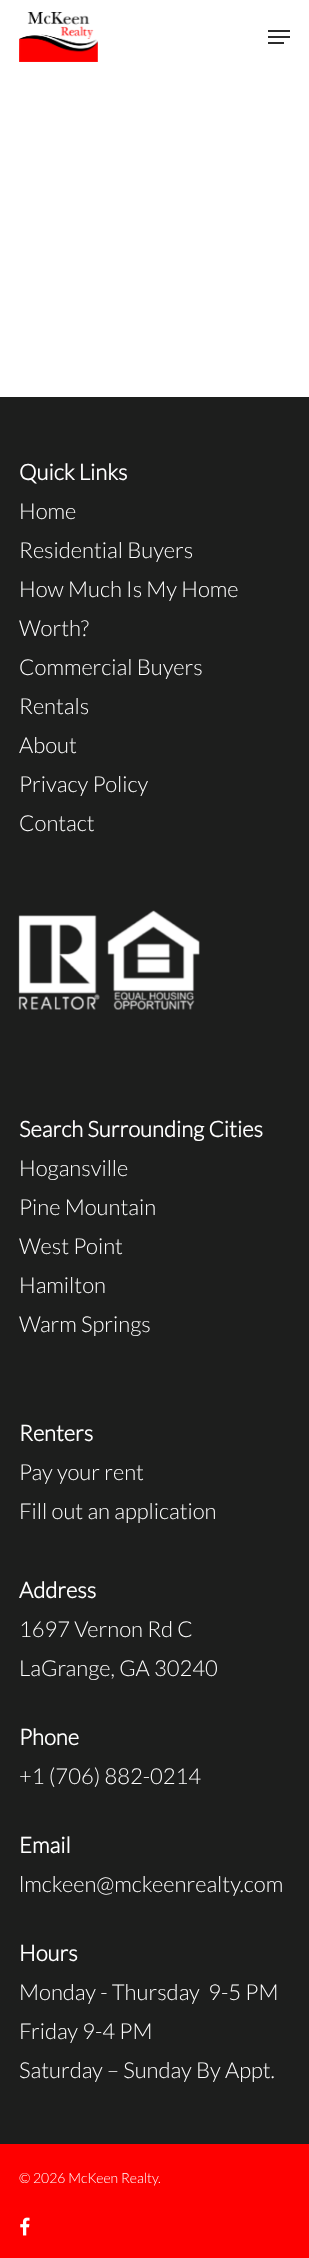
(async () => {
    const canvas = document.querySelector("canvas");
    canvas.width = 309;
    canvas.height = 2258;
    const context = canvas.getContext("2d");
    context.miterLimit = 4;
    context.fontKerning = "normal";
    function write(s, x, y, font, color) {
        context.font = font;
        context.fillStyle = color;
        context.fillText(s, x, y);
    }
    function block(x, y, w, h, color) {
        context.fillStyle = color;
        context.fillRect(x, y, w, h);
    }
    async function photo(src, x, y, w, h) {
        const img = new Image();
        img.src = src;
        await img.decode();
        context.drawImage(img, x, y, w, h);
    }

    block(0, 0, 309, 2258, "rgb(255, 255, 255)");
    await photo("media/1.png", 19, 12, 79, 50);
    block(268, 30, 22, 2, "rgb(43, 43, 43)");
    block(268, 42, 16, 2, "rgb(43, 43, 43)");
    block(268, 36, 22, 2, "rgb(43, 43, 43)");
    block(0, 397, 309, 1747, "rgb(29, 30, 29)");
    write("Quick Links", 19, 480, "bold 22px Lato", "rgb(255, 255, 255)");
    write("Home", 19, 519, "300 22px Lato", "rgb(255, 255, 255)");
    write("Residential Buyers", 19, 558, "300 22px Lato", "rgb(255, 255, 255)");
    write("How Much Is My Home", 19, 597, "300 22px Lato", "rgb(255, 255, 255)");
    write("Worth?", 19, 636, "300 22px Lato", "rgb(255, 255, 255)");
    write("Commercial Buyers", 19, 675, "300 22px Lato", "rgb(255, 255, 255)");
    write("Rentals", 19, 714, "300 22px Lato", "rgb(255, 255, 255)");
    write("About", 19, 753, "300 22px Lato", "rgb(255, 255, 255)");
    write("Privacy Policy", 19, 792, "300 22px Lato", "rgb(255, 255, 255)");
    write("Contact", 19, 831, "300 22px Lato", "rgb(255, 255, 255)");
    await photo("media/2.png", 18, 910, 182, 100);
    write("Search Surrounding Cities", 19, 1137, "bold 22px Lato", "rgb(255, 255, 255)");
    write("Hogansville", 19, 1176, "300 22px Lato", "rgb(255, 255, 255)");
    write("Pine Mountain", 19, 1215, "300 22px Lato", "rgb(255, 255, 255)");
    write("West Point", 19, 1254, "300 22px Lato", "rgb(255, 255, 255)");
    write("Hamilton", 19, 1293, "300 22px Lato", "rgb(255, 255, 255)");
    write("Warm Springs", 19, 1332, "300 22px Lato", "rgb(255, 255, 255)");
    write("Renters", 19, 1441, "bold 22px Lato", "rgb(255, 255, 255)");
    write("Pay your rent", 19, 1480, "300 22px Lato", "rgb(255, 255, 255)");
    write("Fill out an application", 19, 1519, "300 22px Lato", "rgb(255, 255, 255)");
    write("Address", 19, 1598, "bold 22px Lato", "rgb(255, 255, 255)");
    write("1697 Vernon Rd C", 19, 1637, "300 22px Lato", "rgb(255, 255, 255)");
    write("LaGrange, GA 30240", 19, 1676, "300 22px Lato", "rgb(255, 255, 255)");
    write("Phone", 19, 1745, "bold 22px Lato", "rgb(255, 255, 255)");
    write("+1 (706) 882-0214", 19, 1784, "300 22px Lato", "rgb(255, 255, 255)");
    write("Email", 19, 1853, "bold 22px Lato", "rgb(255, 255, 255)");
    write("lmckeen@mckeenrealty.com", 19, 1892, "300 22px Lato", "rgb(255, 255, 255)");
    write("Hours", 19, 1961, "bold 22px Lato", "rgb(255, 255, 255)");
    write("Monday - Thursday  9-5 PM", 19, 2000, "300 22px Lato", "rgb(255, 255, 255)");
    write("Friday 9-4 PM", 19, 2039, "300 22px Lato", "rgb(255, 255, 255)");
    write("Saturday – Sunday By Appt.", 19, 2078, "300 22px Lato", "rgb(255, 255, 255)");
    block(0, 2144, 309, 114, "rgb(254, 0, 0)");
    write("© 2026 McKeen Realty.", 19, 2183, "300 14px Lato", "rgb(255, 255, 255)");
    await photo("media/3.png", 20, 2217, 10, 19);
})();
